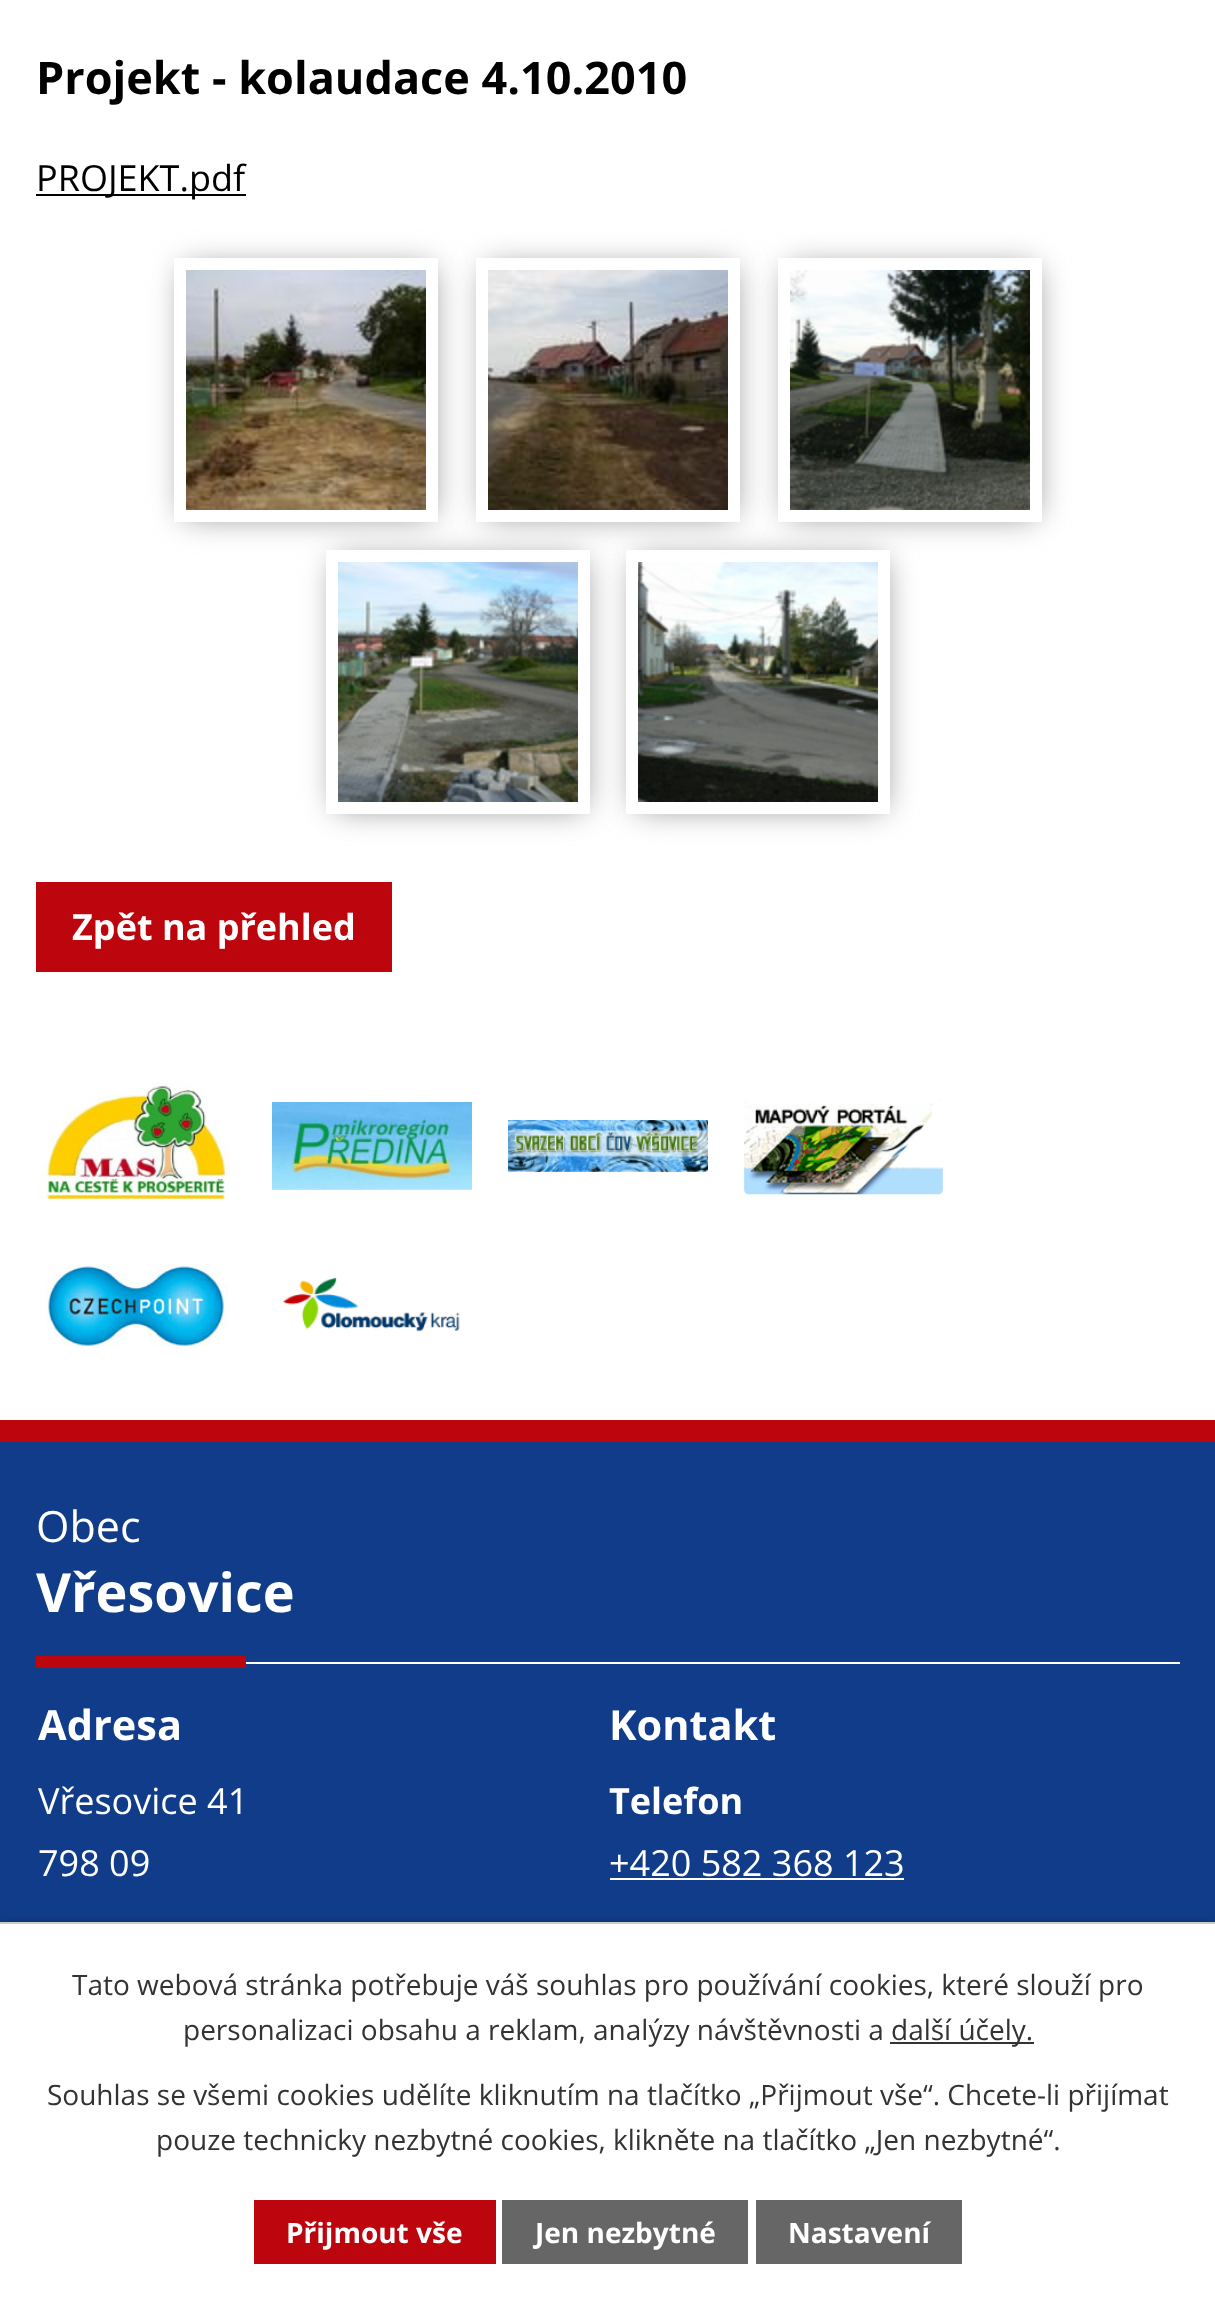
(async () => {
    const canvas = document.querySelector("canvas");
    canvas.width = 1215;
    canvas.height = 2302;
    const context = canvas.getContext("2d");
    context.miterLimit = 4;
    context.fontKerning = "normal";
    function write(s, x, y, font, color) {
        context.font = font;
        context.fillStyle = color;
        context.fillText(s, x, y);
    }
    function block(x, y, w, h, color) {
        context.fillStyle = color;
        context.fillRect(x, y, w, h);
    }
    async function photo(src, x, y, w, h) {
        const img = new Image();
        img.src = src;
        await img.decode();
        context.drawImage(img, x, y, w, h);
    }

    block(0, 0, 1215, 2302, "rgb(255, 255, 255)");
    write("Projekt - kolaudace 4.10.2010", 36, 94, "bold 45px Open Sans", "rgb(0, 0, 0)");
    block(36, 194, 210, 2, "rgb(0, 0, 0)");
    write("PROJEKT.pdf", 36, 191, "36px Open Sans", "rgb(0, 0, 0)");
    context.save();
    context.beginPath();
    context.moveTo(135, 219);
    context.lineTo(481, 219);
    context.lineTo(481, 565);
    context.lineTo(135, 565);
    context.closePath();
    context.moveTo(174, 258);
    context.lineTo(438, 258);
    context.lineTo(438, 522);
    context.lineTo(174, 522);
    context.closePath();
    context.clip("evenodd");
    context.fillStyle = "rgb(136, 136, 136)";
    context.filter = "blur(16px)";
    context.beginPath();
    context.rect(184, 268, 248, 248);
    context.fill();
    context.filter = "none";
    context.restore();
    await photo("media/1.png", 186, 270, 240, 240);
    context.save();
    context.beginPath();
    context.moveTo(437, 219);
    context.lineTo(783, 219);
    context.lineTo(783, 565);
    context.lineTo(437, 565);
    context.closePath();
    context.moveTo(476, 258);
    context.lineTo(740, 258);
    context.lineTo(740, 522);
    context.lineTo(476, 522);
    context.closePath();
    context.clip("evenodd");
    context.fillStyle = "rgb(136, 136, 136)";
    context.filter = "blur(16px)";
    context.beginPath();
    context.rect(486, 268, 248, 248);
    context.fill();
    context.filter = "none";
    context.restore();
    await photo("media/2.png", 488, 270, 240, 240);
    context.save();
    context.beginPath();
    context.moveTo(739, 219);
    context.lineTo(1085, 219);
    context.lineTo(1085, 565);
    context.lineTo(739, 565);
    context.closePath();
    context.moveTo(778, 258);
    context.lineTo(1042, 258);
    context.lineTo(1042, 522);
    context.lineTo(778, 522);
    context.closePath();
    context.clip("evenodd");
    context.fillStyle = "rgb(136, 136, 136)";
    context.filter = "blur(16px)";
    context.beginPath();
    context.rect(788, 268, 248, 248);
    context.fill();
    context.filter = "none";
    context.restore();
    await photo("media/3.png", 790, 270, 240, 240);
    context.save();
    context.beginPath();
    context.moveTo(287, 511);
    context.lineTo(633, 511);
    context.lineTo(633, 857);
    context.lineTo(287, 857);
    context.closePath();
    context.moveTo(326, 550);
    context.lineTo(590, 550);
    context.lineTo(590, 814);
    context.lineTo(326, 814);
    context.closePath();
    context.clip("evenodd");
    context.fillStyle = "rgb(136, 136, 136)";
    context.filter = "blur(16px)";
    context.beginPath();
    context.rect(336, 560, 248, 248);
    context.fill();
    context.filter = "none";
    context.restore();
    await photo("media/4.png", 338, 562, 240, 240);
    context.save();
    context.beginPath();
    context.moveTo(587, 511);
    context.lineTo(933, 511);
    context.lineTo(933, 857);
    context.lineTo(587, 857);
    context.closePath();
    context.moveTo(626, 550);
    context.lineTo(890, 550);
    context.lineTo(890, 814);
    context.lineTo(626, 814);
    context.closePath();
    context.clip("evenodd");
    context.fillStyle = "rgb(136, 136, 136)";
    context.filter = "blur(16px)";
    context.beginPath();
    context.rect(636, 560, 248, 248);
    context.fill();
    context.filter = "none";
    context.restore();
    await photo("media/5.png", 638, 562, 240, 240);
    block(36, 882, 356, 90, "rgb(189, 5, 14)");
    write("Zpět na přehled", 72, 940, "bold 36px Open Sans", "rgb(255, 255, 255)");
    block(0, 1442, 1215, 480, "rgb(17, 60, 137)");
    await photo("media/6.png", 36, 1082, 194, 118);
    await photo("media/7.png", 272, 1102, 200, 88);
    await photo("media/8.png", 508, 1120, 200, 52);
    await photo("media/9.png", 744, 1099, 199, 96);
    await photo("media/10.png", 45, 1264, 183, 83);
    await photo("media/11.png", 282, 1277, 178, 55);
    block(0, 1420, 1215, 22, "rgb(189, 5, 14)");
    write("Obec", 36, 1542, "43px Open Sans", "rgb(255, 255, 255)");
    write("Vřesovice", 36, 1612, "bold 54px Open Sans", "rgb(255, 255, 255)");
    block(36, 1656, 210, 12, "rgb(189, 5, 14)");
    block(246, 1662, 934, 2, "rgb(255, 255, 255)");
    write("Adresa", 38, 1740, "bold 41.5px Open Sans", "rgb(255, 255, 255)");
    write("Vřesovice 41", 38, 1814, "36px Open Sans", "rgb(255, 255, 255)");
    write("798 09", 38, 1876, "36px Open Sans", "rgb(255, 255, 255)");
    write("Kontakt", 609, 1740, "bold 41.5px Open Sans", "rgb(255, 255, 255)");
    write("Telefon", 609, 1814, "bold 36px Open Sans", "rgb(255, 255, 255)");
    write("+420 582 368 123", 609, 1876, "36px Open Sans", "rgb(255, 255, 255)");
    block(610, 1878, 294, 2, "rgb(255, 255, 255)");
    context.fillStyle = "rgba(0, 0, 0, 0.2)";
    context.filter = "blur(5px)";
    context.beginPath();
    context.rect(0, 1922, 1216, 380);
    context.fill();
    context.filter = "none";
    block(0, 1924, 1215, 378, "rgb(255, 255, 255)");
    block(0, 1922, 1215, 2, "rgb(204, 204, 204)");
    write("Tato webová stránka potřebuje váš souhlas pro používání cookies, které slouží pro", 72, 1995, "28px Open Sans", "rgb(51, 51, 51)");
    write("personalizaci obsahu a reklam, analýzy návštěvnosti a", 183, 2040, "28px Open Sans", "rgb(51, 51, 51)");
    block(890, 2042, 144, 2, "rgb(51, 51, 51)");
    write("další účely.", 891, 2040, "28px Open Sans", "rgb(51, 51, 51)");
    write("Souhlas se všemi cookies udělíte kliknutím na tlačítko „Přijmout vše“. Chcete-li přijímat", 47, 2105, "28px Open Sans", "rgb(51, 51, 51)");
    write("pouze technicky nezbytné cookies, klikněte na tlačítko „Jen nezbytné“.", 156, 2150, "28px Open Sans", "rgb(51, 51, 51)");
    block(254, 2200, 242, 64, "rgb(189, 5, 14)");
    write("Přijmout vše", 286, 2243, "bold 28px Open Sans", "rgb(255, 255, 255)");
    block(502, 2200, 246, 64, "rgb(102, 102, 102)");
    write("Jen nezbytné", 535, 2243, "bold 28px Open Sans", "rgb(255, 255, 255)");
    block(756, 2200, 206, 64, "rgb(102, 102, 102)");
    write("Nastavení", 788, 2243, "bold 28px Open Sans", "rgb(255, 255, 255)");
})();
